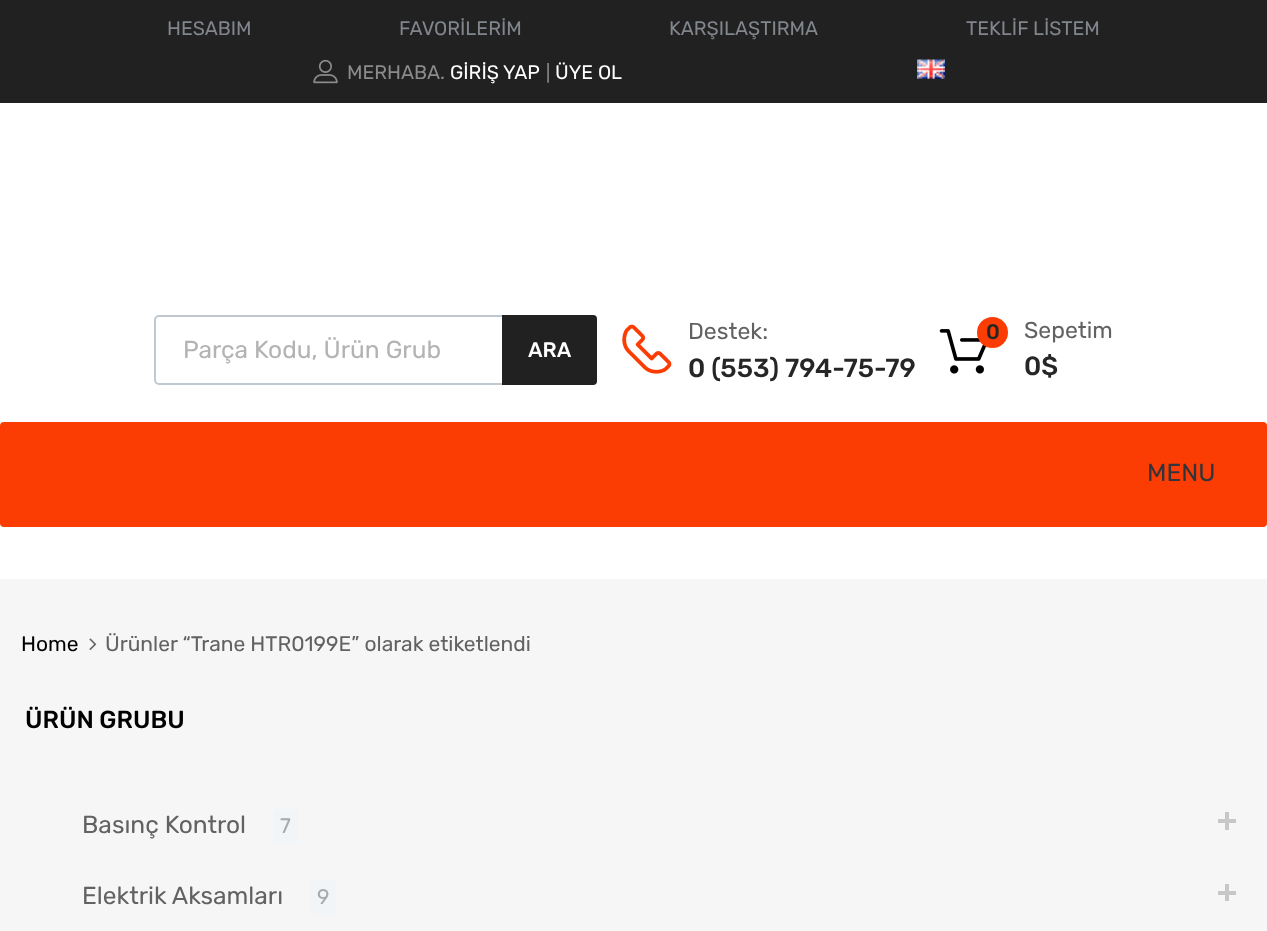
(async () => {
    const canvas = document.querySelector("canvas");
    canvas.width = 1267;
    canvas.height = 931;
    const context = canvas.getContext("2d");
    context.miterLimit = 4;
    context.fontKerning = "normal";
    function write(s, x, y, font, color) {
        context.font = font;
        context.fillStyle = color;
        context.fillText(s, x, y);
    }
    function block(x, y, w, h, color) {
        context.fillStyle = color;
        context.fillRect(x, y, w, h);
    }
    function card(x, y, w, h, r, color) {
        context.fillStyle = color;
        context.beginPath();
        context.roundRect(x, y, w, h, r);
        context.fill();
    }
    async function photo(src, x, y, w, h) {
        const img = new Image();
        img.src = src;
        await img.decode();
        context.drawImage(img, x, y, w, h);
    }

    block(0, 0, 1267, 931, "rgb(246, 246, 246)");
    block(0, 103, 1267, 476, "rgb(255, 255, 255)");
    block(0, 0, 1267, 103, "rgb(33, 33, 33)");
    write("HESABIM", 167, 35, "300 19.5px Rubik", "rgb(129, 133, 140)");
    write("FAVORİLERİM", 399, 35, "300 19.5px Rubik", "rgb(129, 133, 140)");
    write("KARŞILAŞTIRMA", 669, 35, "300 19.5px Rubik", "rgb(129, 133, 140)");
    write("TEKLİF LİSTEM", 966, 35, "300 19.5px Rubik", "rgb(129, 133, 140)");
    await photo("media/1.png", 313, 59, 25, 25);
    write("MERHABA.", 347, 79, "300 19.5px Rubik", "rgb(139, 139, 139)");
    write("GİRİŞ YAP", 450, 79, "300 19.5px Rubik", "rgb(255, 255, 255)");
    write("|", 546, 79, "300 18px Rubik", "rgb(139, 139, 139)");
    write("ÜYE OL", 555, 79, "300 19.5px Rubik", "rgb(255, 255, 255)");
    await photo("media/2.png", 917, 59, 28, 20);
    context.beginPath();
    context.roundRect(155, 316, 441, 68, 4);
    context.strokeStyle = "rgb(190, 200, 206)";
    context.lineWidth = 2;
    context.stroke();
    write("Parça Kodu, Ürün Grub", 183, 358, "300 24.5px Rubik", "rgb(179, 179, 179)");
    context.fillStyle = "rgb(33, 33, 33)";
    context.beginPath();
    context.roundRect(502, 315, 95, 70, [0, 4, 4, 0]);
    context.fill();
    write("ARA", 528, 357, "500 21px Rubik", "rgb(255, 255, 255)");
    await photo("media/3.png", 622, 324, 50, 50);
    write("Destek:", 688, 339, "300 23px Rubik", "rgb(98, 98, 98)");
    write("0 (553) 794-75-79", 688, 377, "500 26.25px Rubik", "rgb(38, 38, 38)");
    await photo("media/4.png", 939, 329, 48, 45);
    context.fillStyle = "rgb(251, 61, 3)";
    context.beginPath();
    context.arc(992.5, 332.5, 15.5, 0, Math.PI * 2);
    context.fill();
    write("0", 986, 339, "500 21px Rubik", "rgb(38, 38, 38)");
    write("Sepetim", 1024, 338, "300 23px Rubik", "rgb(98, 98, 98)");
    write("0$", 1024, 375, "500 26.25px Rubik", "rgb(38, 38, 38)");
    card(0, 422, 1267, 105, 4, "rgb(251, 61, 3)");
    write("MENU", 1147, 481, "300 24.5px Rubik", "rgb(49, 53, 59)");
    write("Home", 21, 651, "300 21px Rubik", "rgb(0, 0, 0)");
    await photo("media/5.png", 89, 638, 8, 12);
    write("Ürünler “Trane HTR0199E” olarak etiketlendi", 105, 651, "300 21px Rubik", "rgb(98, 98, 98)");
    write("ÜRÜN GRUBU", 25, 728, "500 24.5px Rubik", "rgb(0, 0, 0)");
    write("Basınç Kontrol", 82, 833, "300 24.5px Rubik", "rgb(98, 98, 98)");
    card(273, 809, 25, 35, 4, "rgb(241, 245, 247)");
    write("7", 280, 833, "300 21px Rubik", "rgb(169, 169, 169)");
    block(1218, 819, 18, 4, "rgb(199, 199, 199)");
    block(1225, 812, 4, 18, "rgb(199, 199, 199)");
    write("Elektrik Aksamları", 82, 904, "300 24.5px Rubik", "rgb(98, 98, 98)");
    card(310, 880, 26, 35, 4, "rgb(241, 245, 247)");
    write("9", 317, 904, "300 21px Rubik", "rgb(169, 169, 169)");
    block(1218, 891, 18, 4, "rgb(199, 199, 199)");
    block(1225, 884, 4, 17, "rgb(199, 199, 199)");
})();
